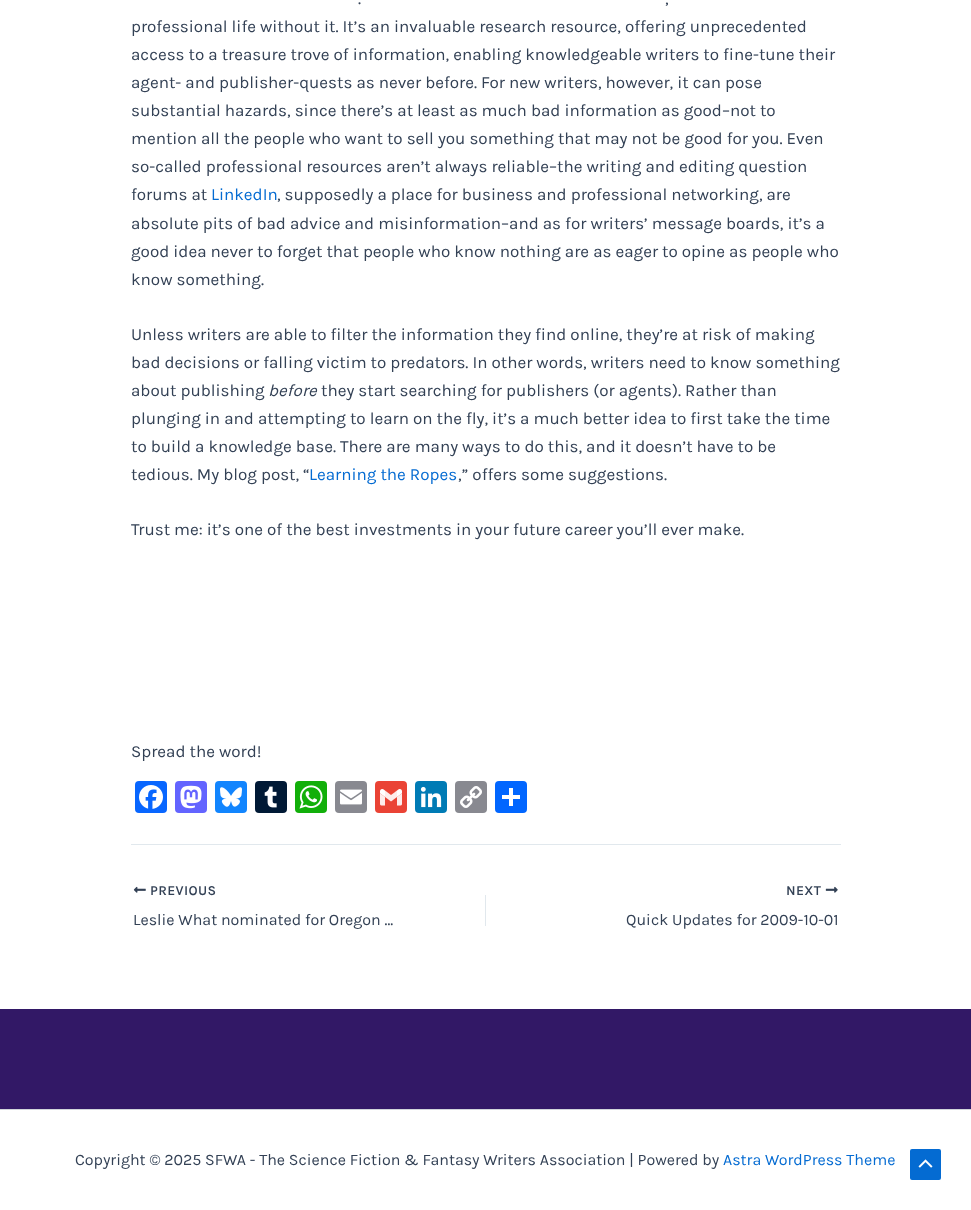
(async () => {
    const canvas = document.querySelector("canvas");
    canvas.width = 971;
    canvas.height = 1210;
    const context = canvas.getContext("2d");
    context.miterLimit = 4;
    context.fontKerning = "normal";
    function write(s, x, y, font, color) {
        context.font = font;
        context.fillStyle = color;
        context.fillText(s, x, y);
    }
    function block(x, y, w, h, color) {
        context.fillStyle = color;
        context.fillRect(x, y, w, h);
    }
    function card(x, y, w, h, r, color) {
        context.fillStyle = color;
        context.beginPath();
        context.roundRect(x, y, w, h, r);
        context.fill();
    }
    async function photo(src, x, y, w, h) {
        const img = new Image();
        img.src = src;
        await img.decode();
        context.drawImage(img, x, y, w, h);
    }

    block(0, 0, 971, 1210, "rgb(255, 255, 255)");
    write(".", 358, 4, "17px Karla", "rgb(51, 65, 85)");
    write(",", 665, 4, "17px Karla", "rgb(51, 65, 85)");
    write("professional life without it. It’s an invaluable research resource, offering unprecedented", 131, 32, "17px Karla", "rgb(51, 65, 85)");
    write("access to a treasure trove of information, enabling knowledgeable writers to fine-tune their", 131, 60, "17px Karla", "rgb(51, 65, 85)");
    write("agent- and publisher-quests as never before. For new writers, however, it can pose", 131, 88, "17px Karla", "rgb(51, 65, 85)");
    write("substantial hazards, since there’s at least as much bad information as good–not to", 131, 116, "17px Karla", "rgb(51, 65, 85)");
    write("mention all the people who want to sell you something that may not be good for you. Even", 131, 144, "17px Karla", "rgb(51, 65, 85)");
    write("so-called professional resources aren’t always reliable–the writing and editing question", 131, 172, "17px Karla", "rgb(51, 65, 85)");
    write("forums at", 131, 200, "17px Karla", "rgb(51, 65, 85)");
    write("LinkedIn", 211, 200, "17px Karla", "rgb(4, 107, 210)");
    write(", supposedly a place for business and professional networking, are", 277, 200, "17px Karla", "rgb(51, 65, 85)");
    write("absolute pits of bad advice and misinformation–and as for writers’ message boards, it’s a", 131, 229, "17px Karla", "rgb(51, 65, 85)");
    write("good idea never to forget that people who know nothing are as eager to opine as people who", 131, 257, "17px Karla", "rgb(51, 65, 85)");
    write("know something.", 131, 285, "17px Karla", "rgb(51, 65, 85)");
    write("Unless writers are able to filter the information they find online, they’re at risk of making", 131, 340, "17px Karla", "rgb(51, 65, 85)");
    write("bad decisions or falling victim to predators. In other words, writers need to know something", 131, 368, "17px Karla", "rgb(51, 65, 85)");
    write("about publishing", 131, 396, "17px Karla", "rgb(51, 65, 85)");
    write("before", 268, 396, "italic 17px Karla", "rgb(51, 65, 85)");
    write("they start searching for publishers (or agents). Rather than", 321, 396, "17px Karla", "rgb(51, 65, 85)");
    write("plunging in and attempting to learn on the fly, it’s a much better idea to first take the time", 131, 424, "17px Karla", "rgb(51, 65, 85)");
    write("to build a knowledge base. There are many ways to do this, and it doesn’t have to be", 131, 452, "17px Karla", "rgb(51, 65, 85)");
    write("tedious. My blog post, “", 131, 480, "17px Karla", "rgb(51, 65, 85)");
    write("Learning the Ropes", 309, 480, "17px Karla", "rgb(4, 107, 210)");
    write(",” offers some suggestions.", 458, 480, "17px Karla", "rgb(51, 65, 85)");
    write("Trust me: it’s one of the best investments in your future career you’ll ever make.", 131, 535, "17px Karla", "rgb(51, 65, 85)");
    write("Spread the word!", 131, 757, "17px Karla", "rgb(51, 65, 85)");
    card(135, 781, 32, 32, 4, "rgb(8, 102, 255)");
    await photo("media/1.png", 139, 785, 24, 24);
    card(175, 781, 32, 32, 4, "rgb(99, 100, 255)");
    await photo("media/2.png", 180, 785, 22, 24);
    card(215, 781, 32, 32, 4, "rgb(18, 133, 254)");
    await photo("media/3.png", 220, 787, 22, 20);
    card(255, 781, 32, 32, 4, "rgb(0, 25, 53)");
    await photo("media/4.png", 264, 786, 13, 22);
    card(295, 781, 32, 32, 4, "rgb(18, 175, 10)");
    await photo("media/5.png", 299, 785, 24, 24);
    card(335, 781, 32, 32, 4, "rgb(136, 137, 144)");
    await photo("media/6.png", 340, 789, 22, 16);
    card(375, 781, 32, 32, 4, "rgb(234, 67, 53)");
    await photo("media/7.png", 380, 789, 22, 17);
    card(415, 781, 32, 32, 4, "rgb(0, 123, 181)");
    await photo("media/8.png", 420, 786, 22, 22);
    card(455, 781, 32, 32, 4, "rgb(136, 137, 144)");
    await photo("media/9.png", 460, 786, 22, 22);
    card(495, 781, 32, 32, 4, "rgb(1, 102, 255)");
    block(509, 788, 4, 18, "rgb(255, 255, 255)");
    block(502, 795, 18, 4, "rgb(255, 255, 255)");
    block(131, 844, 710, 1, "rgb(225, 232, 237)");
    await photo("media/10.png", 133, 886, 13, 7);
    context.letterSpacing = "0.75px";
    write("PREVIOUS", 150, 895, "bold 13.5px Karla", "rgb(51, 65, 85)");
    context.letterSpacing = "0px";
    write("Leslie What nominated for Oregon …", 133, 925, "16px Karla", "rgb(51, 65, 85)");
    block(485, 895, 1, 31, "rgb(225, 232, 237)");
    context.letterSpacing = "0.75px";
    write("NEXT", 786, 895, "bold 13.5px Karla", "rgb(51, 65, 85)");
    await photo("media/11.png", 825, 886, 13, 7);
    context.letterSpacing = "0px";
    write("Quick Updates for 2009-10-01", 626, 925, "16px Karla", "rgb(51, 65, 85)");
    block(0, 1009, 971, 100, "rgb(50, 24, 102)");
    block(0, 1109, 971, 1, "rgb(209, 213, 219)");
    write("Copyright © 2025 SFWA - The Science Fiction & Fantasy Writers Association | Powered by", 75, 1165, "16px Karla", "rgb(51, 65, 85)");
    write("Astra WordPress Theme", 723, 1165, "16px Karla", "rgb(4, 107, 210)");
    card(910, 1149, 31, 31, 2, "rgb(4, 107, 210)");
    await photo("media/12.png", 918, 1159, 15, 9);
})();
